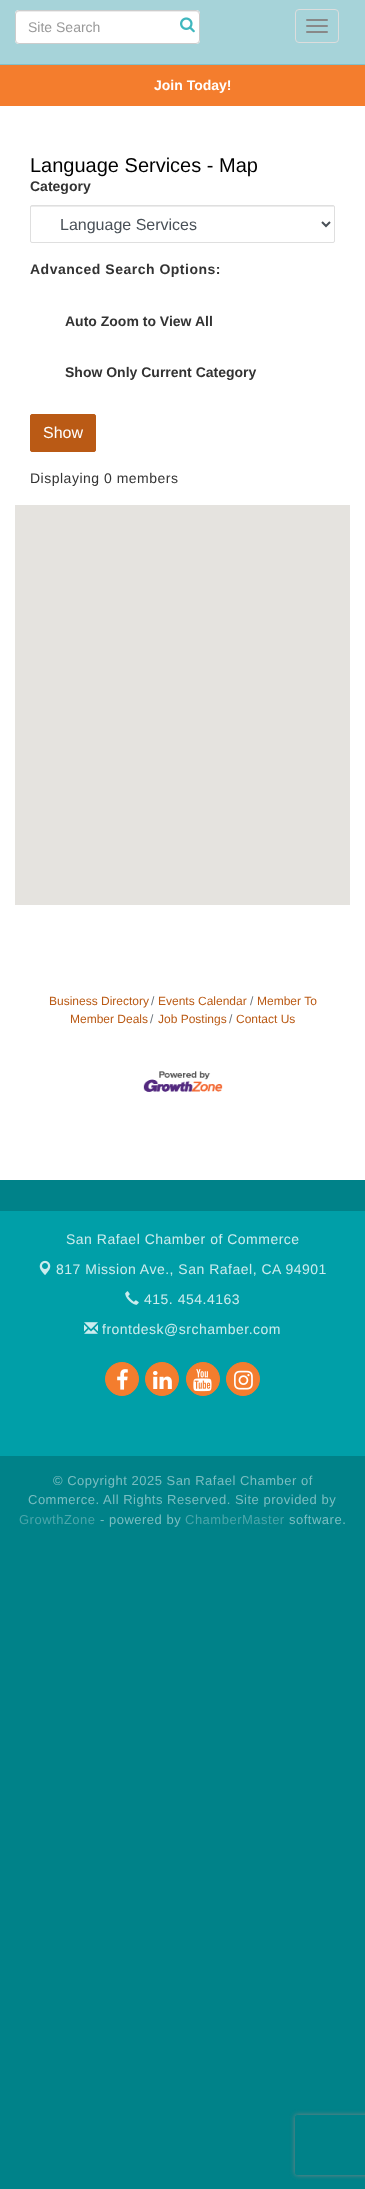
(async () => {
    const canvas = document.querySelector("canvas");
    canvas.width = 365;
    canvas.height = 2189;
    const context = canvas.getContext("2d");
    context.miterLimit = 4;
    context.fontKerning = "normal";
    function write(s, x, y, font, color) {
        context.font = font;
        context.fillStyle = color;
        context.fillText(s, x, y);
    }
    function block(x, y, w, h, color) {
        context.fillStyle = color;
        context.fillRect(x, y, w, h);
    }
    function card(x, y, w, h, r, color) {
        context.fillStyle = color;
        context.beginPath();
        context.roundRect(x, y, w, h, r);
        context.fill();
    }
    async function photo(src, x, y, w, h) {
        const img = new Image();
        img.src = src;
        await img.decode();
        context.drawImage(img, x, y, w, h);
    }

    block(0, 0, 365, 2189, "rgb(0, 130, 137)");
    block(0, 106, 365, 1074, "rgb(255, 255, 255)");
    block(0, 0, 365, 64, "rgb(166, 211, 217)");
    block(0, 64, 365, 1, "rgb(130, 193, 202)");
    card(15, 10, 185, 34, 4, "rgb(255, 255, 255)");
    context.fillStyle = "rgb(236, 236, 236)";
    context.beginPath();
    context.moveTo(19, 12);
    context.lineTo(197, 12);
    context.lineTo(198, 13);
    context.lineTo(199, 15);
    context.bezierCurveTo(199, 13, 198, 11, 196, 11);
    context.lineTo(18, 11);
    context.bezierCurveTo(16, 12, 16, 13, 16, 15);
    context.bezierCurveTo(16, 13, 17, 12, 19, 12);
    context.closePath();
    context.fill();
    context.beginPath();
    context.roundRect(15.5, 10.5, 184, 33, 3.5);
    context.strokeStyle = "rgb(204, 204, 204)";
    context.stroke();
    write("Site Search", 28, 32, "14px Liberation Sans", "rgb(153, 153, 153)");
    await photo("media/1.png", 180, 17, 15, 16);
    context.beginPath();
    context.roundRect(295.5, 9.5, 43, 33, 3.5);
    context.strokeStyle = "rgb(221, 221, 221)";
    context.stroke();
    card(306, 19, 22, 2, 1, "rgb(136, 136, 136)");
    card(306, 25, 22, 2, 1, "rgb(136, 136, 136)");
    card(306, 31, 22, 2, 1, "rgb(136, 136, 136)");
    block(0, 65, 365, 41, "rgb(244, 125, 45)");
    write("Join Today!", 154, 90, "bold 14px Liberation Sans", "rgb(255, 255, 255)");
    write("Language Services - Map", 30, 172, "20px Liberation Sans", "rgb(0, 0, 0)");
    write("Category", 30, 191, "bold 14px Liberation Sans", "rgb(51, 51, 51)");
    context.fillStyle = "rgb(236, 236, 236)";
    context.beginPath();
    context.moveTo(32, 207);
    context.lineTo(333, 207);
    context.bezierCurveTo(334, 207, 334, 207, 334, 208);
    context.bezierCurveTo(334, 207, 334, 206, 333, 206);
    context.lineTo(31, 206);
    context.lineTo(31, 208);
    context.bezierCurveTo(31, 207, 31, 207, 32, 207);
    context.closePath();
    context.fill();
    context.beginPath();
    context.roundRect(30.5, 205.5, 304, 37, 1.5);
    context.strokeStyle = "rgb(223, 223, 223)";
    context.stroke();
    context.beginPath();
    context.moveTo(322, 222);
    context.lineTo(326, 226);
    context.lineTo(330, 222);
    context.strokeStyle = "rgb(73, 80, 87)";
    context.lineWidth = 2;
    context.stroke();
    write("Language Services", 60, 230, "16px Liberation Sans", "rgb(73, 80, 87)");
    context.letterSpacing = "0.5px";
    write("Advanced Search Options:", 30, 274, "bold 14px Liberation Sans", "rgb(51, 51, 51)");
    context.letterSpacing = "0px";
    write("Auto Zoom to View All", 65, 326, "bold 14px Liberation Sans", "rgb(51, 51, 51)");
    write("Show Only Current Category", 65, 377, "bold 14px Liberation Sans", "rgb(51, 51, 51)");
    context.fillStyle = "rgb(186, 90, 21)";
    context.beginPath();
    context.roundRect(30.5, 414.5, 65, 37, 1.5);
    context.fill();
    context.strokeStyle = "rgb(186, 90, 21)";
    context.lineWidth = 1;
    context.stroke();
    write("Show", 43, 438, "16px Liberation Sans", "rgb(255, 255, 255)");
    context.letterSpacing = "0.5px";
    write("Displaying 0 members", 30, 483, "14px Liberation Sans", "rgb(51, 51, 51)");
    block(15, 505, 335, 400, "rgb(229, 227, 223)");
    context.letterSpacing = "0px";
    write("Business Directory", 49, 1005, "12px Liberation Sans", "rgb(186, 90, 21)");
    write("/", 250, 1005, "12px Liberation Sans", "rgb(108, 117, 125)");
    write("Member To", 257, 1005, "12px Liberation Sans", "rgb(186, 90, 21)");
    write("Member Deals", 70, 1023, "12px Liberation Sans", "rgb(186, 90, 21)");
    write("/", 151, 1005, "12px Liberation Sans", "rgb(108, 117, 125)");
    write("Events Calendar", 158, 1005, "12px Liberation Sans", "rgb(186, 90, 21)");
    write("/", 150, 1023, "12px Liberation Sans", "rgb(108, 117, 125)");
    write("Job Postings", 158, 1023, "12px Liberation Sans", "rgb(186, 90, 21)");
    write("/", 229, 1023, "12px Liberation Sans", "rgb(108, 117, 125)");
    write("Contact Us", 236, 1023, "12px Liberation Sans", "rgb(186, 90, 21)");
    await photo("media/2.png", 143, 1071, 80, 21);
    block(0, 1211, 365, 245, "rgb(0, 159, 168)");
    context.letterSpacing = "0.5px";
    write("San Rafael Chamber of Commerce", 66, 1244, "14px Liberation Sans", "rgb(204, 236, 238)");
    await photo("media/3.png", 39, 1260, 12, 15);
    write("817 Mission Ave., San Rafael, CA 94901", 56, 1274, "14px Liberation Sans", "rgb(204, 236, 238)");
    await photo("media/4.png", 125, 1291, 14, 14);
    write("415. 454.4163", 144, 1304, "14px Liberation Sans", "rgb(204, 236, 238)");
    await photo("media/5.png", 84, 1322, 14, 12);
    write("frontdesk@srchamber.com", 102, 1334, "14px Liberation Sans", "rgb(204, 236, 238)");
    context.fillStyle = "rgb(244, 125, 46)";
    context.beginPath();
    context.arc(122, 1379, 16.5, 0, Math.PI * 2);
    context.fill();
    context.strokeStyle = "rgb(244, 125, 46)";
    context.stroke();
    await photo("media/6.png", 117, 1369, 11, 21);
    context.beginPath();
    context.arc(162, 1379, 16.5, 0, Math.PI * 2);
    context.fill();
    context.stroke();
    await photo("media/7.png", 153, 1371, 19, 18);
    context.beginPath();
    context.arc(203, 1379, 16.5, 0, Math.PI * 2);
    context.fill();
    context.stroke();
    await photo("media/8.png", 193, 1369, 19, 23);
    context.beginPath();
    context.arc(243, 1379, 16.5, 0, Math.PI * 2);
    context.fill();
    context.stroke();
    await photo("media/9.png", 234, 1370, 19, 20);
    write("© Copyright 2025 San Rafael Chamber of", 53, 1485, "13px Liberation Sans", "rgb(122, 190, 194)");
    write("Commerce. All Rights Reserved. Site provided by", 28, 1504, "13px Liberation Sans", "rgb(122, 190, 194)");
    write("GrowthZone", 19, 1524, "13px Liberation Sans", "rgb(74, 166, 171)");
    write("- powered by", 100, 1524, "13px Liberation Sans", "rgb(122, 190, 194)");
    write("ChamberMaster", 185, 1524, "13px Liberation Sans", "rgb(74, 166, 171)");
    write("software.", 289, 1524, "13px Liberation Sans", "rgb(122, 190, 194)");
    context.save();
    context.beginPath();
    context.moveTo(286, 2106);
    context.lineTo(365, 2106);
    context.lineTo(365, 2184);
    context.lineTo(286, 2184);
    context.closePath();
    context.moveTo(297, 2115);
    context.lineTo(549, 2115);
    context.bezierCurveTo(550, 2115, 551, 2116, 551, 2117);
    context.lineTo(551, 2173);
    context.bezierCurveTo(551, 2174, 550, 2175, 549, 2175);
    context.lineTo(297, 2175);
    context.bezierCurveTo(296, 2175, 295, 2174, 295, 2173);
    context.lineTo(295, 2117);
    context.bezierCurveTo(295, 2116, 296, 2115, 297, 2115);
    context.closePath();
    context.clip("evenodd");
    context.fillStyle = "rgb(128, 128, 128)";
    context.filter = "blur(2.5px)";
    context.beginPath();
    context.roundRect(295, 2115, 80, 60, 2);
    context.fill();
    context.filter = "none";
    context.restore();
})();
